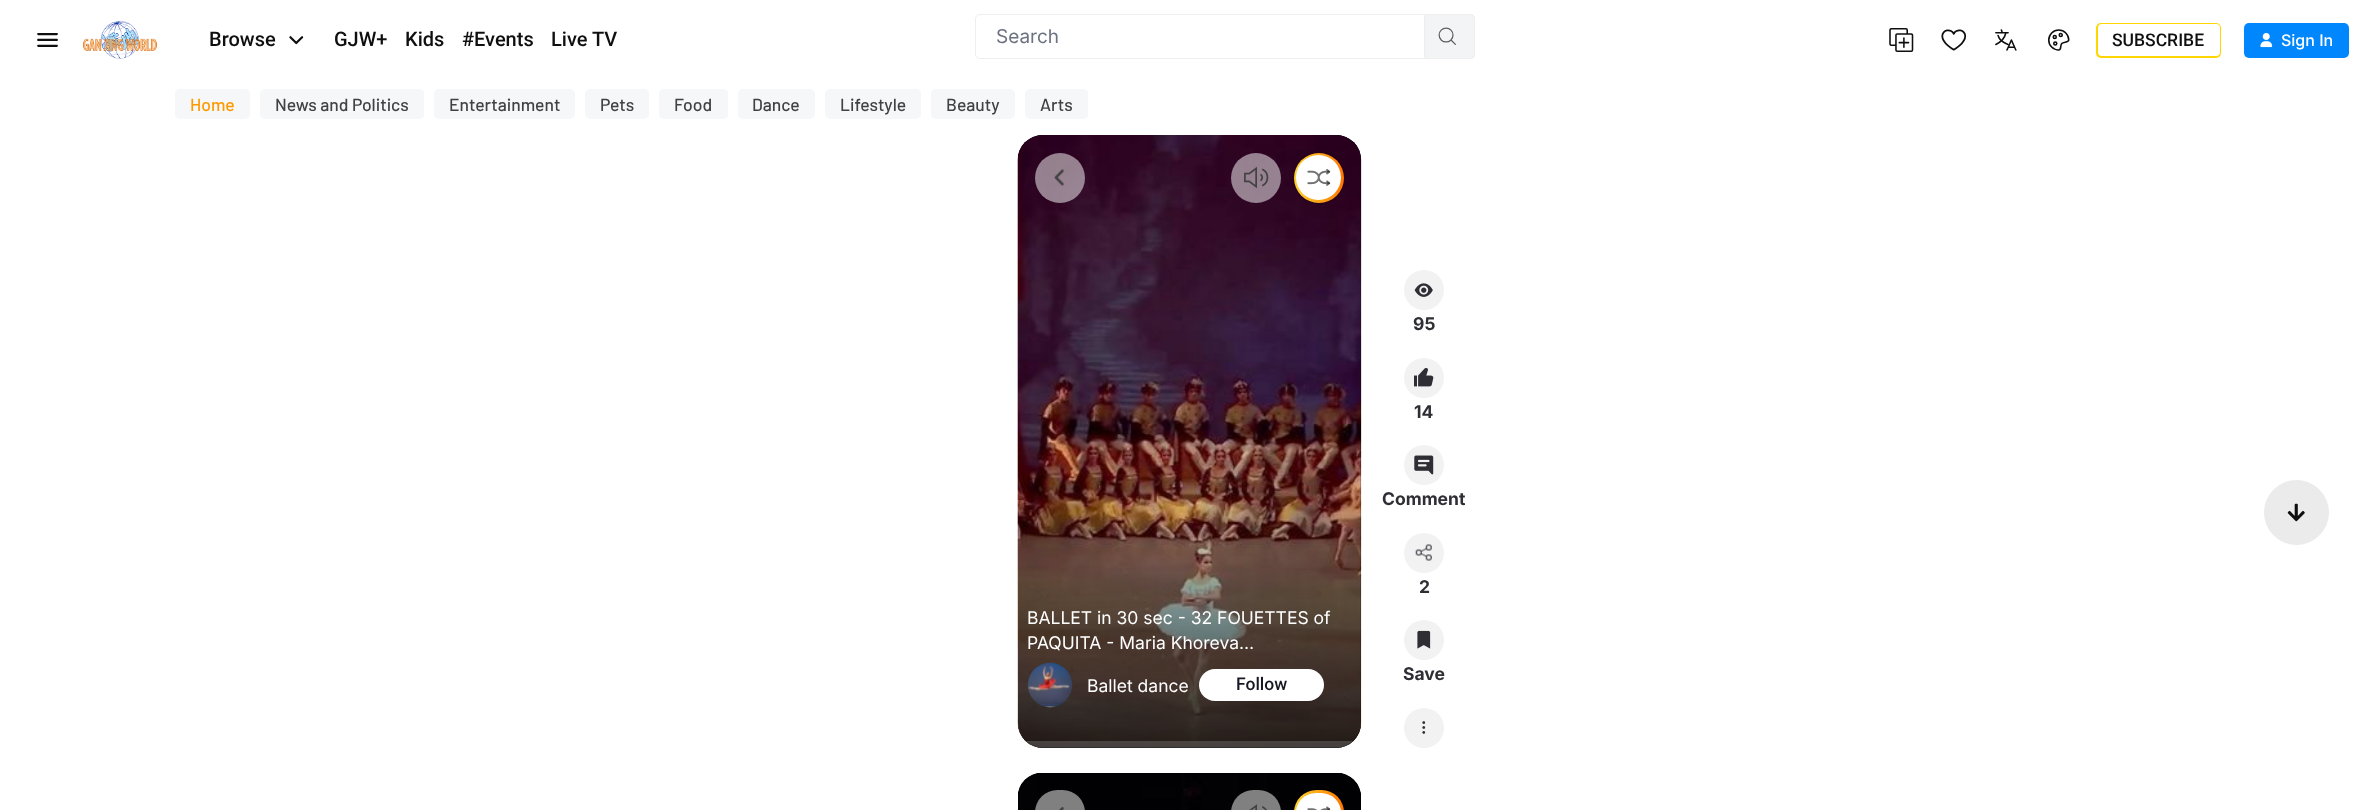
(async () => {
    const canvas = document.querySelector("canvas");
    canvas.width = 2378;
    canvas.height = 810;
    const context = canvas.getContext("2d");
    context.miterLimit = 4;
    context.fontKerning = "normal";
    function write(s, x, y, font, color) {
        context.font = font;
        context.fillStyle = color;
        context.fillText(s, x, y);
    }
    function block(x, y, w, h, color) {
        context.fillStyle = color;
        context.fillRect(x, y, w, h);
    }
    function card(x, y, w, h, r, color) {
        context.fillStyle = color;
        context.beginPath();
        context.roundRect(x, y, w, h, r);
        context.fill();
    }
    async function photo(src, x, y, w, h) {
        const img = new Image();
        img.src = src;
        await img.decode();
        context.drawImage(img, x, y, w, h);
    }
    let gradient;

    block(0, 0, 2378, 810, "rgb(255, 255, 255)");
    await photo("media/1.png", 37, 33, 21, 14);
    await photo("media/2.png", 83, 20, 74, 39);
    write("Browse", 209, 46, "500 20px Roboto", "rgb(15, 15, 15)");
    await photo("media/3.png", 289, 36, 15, 9);
    write("GJW+", 334, 46, "500 20px Roboto", "rgb(15, 15, 15)");
    write("Kids", 405, 46, "500 20px Roboto", "rgb(15, 15, 15)");
    write("#Events", 462, 46, "500 20px Roboto", "rgb(15, 15, 15)");
    write("Live TV", 551, 46, "500 20px Roboto", "rgb(15, 15, 15)");
    context.beginPath();
    context.roundRect(975.5, 14.5, 449, 44, [4.5, 0, 0, 4.5]);
    context.strokeStyle = "rgb(238, 238, 238)";
    context.stroke();
    write("Search", 996, 43, "19px Inter", "rgb(107, 114, 128)");
    context.fillStyle = "rgb(242, 244, 246)";
    context.beginPath();
    context.roundRect(1425, 14, 50, 45, [0, 5, 5, 0]);
    context.fill();
    context.fillStyle = "rgb(238, 238, 238)";
    context.beginPath();
    context.moveTo(1425, 14);
    context.lineTo(1470, 14);
    context.bezierCurveTo(1473, 14, 1475, 16, 1475, 19);
    context.lineTo(1475, 54);
    context.bezierCurveTo(1475, 57, 1473, 59, 1470, 59);
    context.lineTo(1425, 59);
    context.closePath();
    context.moveTo(1425, 15);
    context.lineTo(1470, 15);
    context.bezierCurveTo(1472, 15, 1474, 17, 1474, 19);
    context.lineTo(1474, 54);
    context.bezierCurveTo(1474, 56, 1472, 58, 1470, 58);
    context.lineTo(1425, 58);
    context.closePath();
    context.fill("evenodd");
    await photo("media/4.png", 1438, 27, 18, 18);
    await photo("media/5.png", 1889, 28, 25, 24);
    await photo("media/6.png", 1941, 29, 25, 22);
    await photo("media/7.png", 1995, 29, 22, 22);
    await photo("media/8.png", 2048, 29, 22, 22);
    gradient = context.createLinearGradient(2119, 80, 2198, -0.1);
    gradient.addColorStop(0.01, "rgb(255, 153, 0)");
    gradient.addColorStop(0.01, "rgb(255, 214, 0)");
    gradient.addColorStop(1, "rgb(255, 214, 1)");
    context.fillStyle = gradient;
    context.beginPath();
    context.roundRect(2096, 23, 125, 35, 5);
    context.fill();
    card(2098, 24, 122, 32, 4, "rgb(255, 255, 255)");
    write("SUBSCRIBE", 2112, 46, "500 17.5px Roboto", "rgb(15, 15, 15)");
    card(2244, 23, 105, 35, 5, "rgb(1, 135, 253)");
    await photo("media/9.png", 2260, 33, 13, 15);
    write("Sign In", 2281, 46, "500 16px Inter", "rgb(255, 255, 255)");
    card(175, 89, 75, 30, 5, "rgb(246, 247, 248)");
    write("Home", 190, 111, "500 17.5px Barlow", "rgb(255, 153, 0)");
    card(260, 89, 164, 30, 5, "rgb(246, 247, 248)");
    write("News and Politics", 275, 111, "500 17.5px Barlow", "rgb(66, 66, 66)");
    card(434, 89, 141, 30, 5, "rgb(246, 247, 248)");
    write("Entertainment", 449, 111, "500 17.5px Barlow", "rgb(66, 66, 66)");
    card(585, 89, 64, 30, 5, "rgb(246, 247, 248)");
    write("Pets", 600, 111, "500 17.5px Barlow", "rgb(66, 66, 66)");
    card(659, 89, 69, 30, 5, "rgb(246, 247, 248)");
    write("Food", 674, 111, "500 17.5px Barlow", "rgb(66, 66, 66)");
    card(738, 89, 77, 30, 5, "rgb(246, 247, 248)");
    write("Dance", 752, 111, "500 17.5px Barlow", "rgb(66, 66, 66)");
    card(825, 89, 96, 30, 5, "rgb(246, 247, 248)");
    write("Lifestyle", 840, 111, "500 17.5px Barlow", "rgb(66, 66, 66)");
    card(931, 89, 84, 30, 5, "rgb(246, 247, 248)");
    write("Beauty", 946, 111, "500 17.5px Barlow", "rgb(66, 66, 66)");
    card(1025, 89, 63, 30, 5, "rgb(246, 247, 248)");
    write("Arts", 1040, 111, "500 17.5px Barlow", "rgb(66, 66, 66)");
    await photo("media/10.png", 1017, 135, 345, 613);
    card(1018, 135, 343, 613, 25, "rgb(0, 0, 0)");
    await photo("media/11.png", 1017, 135, 344, 613);
    gradient = context.createLinearGradient(1189, 748, 1189, 498);
    gradient.addColorStop(0, "rgba(0, 0, 0, 0.4)");
    gradient.addColorStop(1, "rgba(0, 0, 0, 0)");
    context.fillStyle = gradient;
    context.beginPath();
    context.roundRect(1018, 498, 343, 250, [0, 0, 25, 25]);
    context.fill();
    context.beginPath();
    context.roundRect(1018, 498, 343, 250, [0, 0, 25, 25]);
    context.fill();
    context.save();
    context.beginPath();
    context.roundRect(1018, 135, 343, 613, 25);
    context.clip();
    card(1018, 741, 343, 7, 2.5, "rgba(255, 255, 255, 0.3)");
    context.restore();
    context.beginPath();
    context.roundRect(1018, 498, 343, 250, [0, 0, 25, 25]);
    context.fill();
    context.fillStyle = "rgba(255, 255, 255, 0.5)";
    context.beginPath();
    context.arc(1060, 178, 25, 0, Math.PI * 2);
    context.fill();
    await photo("media/12.png", 1054, 169, 10, 17);
    context.beginPath();
    context.arc(1256, 178, 25, 0, Math.PI * 2);
    context.fill();
    await photo("media/13.png", 1244, 166, 25, 23);
    context.fillStyle = "rgba(0, 0, 0, 0.25)";
    context.filter = "blur(1px)";
    context.beginPath();
    context.roundRect(1294, 153, 50, 50, 25);
    context.fill();
    context.filter = "none";
    gradient = context.createLinearGradient(1294, 178, 1344, 178);
    gradient.addColorStop(0, "rgb(252, 211, 45)");
    gradient.addColorStop(1, "rgb(255, 118, 0)");
    context.fillStyle = gradient;
    context.beginPath();
    context.arc(1319, 178, 25, 0, Math.PI * 2);
    context.fill();
    context.fillStyle = "rgb(255, 255, 255)";
    context.beginPath();
    context.arc(1318.5, 177.5, 22.5, 0, Math.PI * 2);
    context.fill();
    await photo("media/14.png", 1307, 169, 24, 17);
    write("BALLET in 30 sec - 32 FOUETTES of", 1027, 624, "17.5px Inter", "rgb(255, 255, 255)");
    write("PAQUITA - Maria Khoreva…", 1027, 649, "17.5px Inter", "rgb(255, 255, 255)");
    await photo("media/15.png", 1027, 662, 46, 46);
    write("Ballet dance", 1087, 692, "17.5px Inter", "rgb(255, 255, 255)");
    card(1199, 669, 125, 32, 16, "rgb(255, 255, 255)");
    write("Follow", 1236, 690, "500 17.5px Roboto", "rgb(22, 23, 34)");
    context.fillStyle = "rgb(242, 242, 243)";
    context.beginPath();
    context.arc(1424, 290, 20, 0, Math.PI * 2);
    context.fill();
    await photo("media/16.png", 1414, 283, 19, 14);
    write("95", 1413, 330, "bold 17.5px Inter", "rgb(47, 46, 53)");
    context.fillStyle = "rgb(242, 242, 243)";
    context.beginPath();
    context.arc(1424, 378, 20, 0, Math.PI * 2);
    context.fill();
    await photo("media/17.png", 1414, 368, 20, 19);
    write("14", 1414, 418, "bold 17.5px Inter", "rgb(47, 46, 53)");
    context.fillStyle = "rgb(242, 242, 243)";
    context.beginPath();
    context.arc(1424, 465, 20, 0, Math.PI * 2);
    context.fill();
    await photo("media/18.png", 1414, 455, 20, 20);
    write("Comment", 1382, 505, "bold 17.5px Inter", "rgb(47, 46, 53)");
    context.fillStyle = "rgb(242, 242, 243)";
    context.beginPath();
    context.arc(1424, 553, 20, 0, Math.PI * 2);
    context.fill();
    await photo("media/19.png", 1415, 544, 17, 17);
    write("2", 1419, 593, "bold 17.5px Inter", "rgb(47, 46, 53)");
    context.fillStyle = "rgb(242, 242, 243)";
    context.beginPath();
    context.arc(1424, 640, 20, 0, Math.PI * 2);
    context.fill();
    await photo("media/20.png", 1417, 630, 14, 19);
    write("Save", 1403, 680, "bold 17.5px Inter", "rgb(47, 46, 53)");
    context.fillStyle = "rgb(242, 242, 243)";
    context.beginPath();
    context.arc(1424, 728, 20, 0, Math.PI * 2);
    context.fill();
    await photo("media/21.png", 1422, 721, 4, 13);
    await photo("media/22.png", 1018, 773, 343, 22);
    await photo("media/23.png", 1018, 773, 343, 37);
    card(1035, 790, 50, 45, 25, "rgb(128, 128, 129)");
    await photo("media/24.png", 1059, 807, 5, 3);
    card(1231, 790, 50, 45, 25, "rgb(128, 128, 129)");
    await photo("media/25.png", 1249, 804, 18, 6);
    gradient = context.createLinearGradient(1294, 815, 1344, 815);
    gradient.addColorStop(0, "rgb(252, 211, 45)");
    gradient.addColorStop(1, "rgb(255, 118, 0)");
    context.fillStyle = gradient;
    context.beginPath();
    context.roundRect(1294, 790, 50, 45, 25);
    context.fill();
    card(1296, 793, 45, 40, 22.5, "rgb(255, 255, 255)");
    await photo("media/26.png", 1307, 806, 24, 4);
    context.fillStyle = "rgb(235, 235, 235)";
    context.beginPath();
    context.arc(2296.5, 512.5, 32, 0, Math.PI * 2);
    context.fill();
    context.strokeStyle = "rgb(235, 235, 235)";
    context.stroke();
    await photo("media/27.png", 2287, 503, 18, 19);
})();
